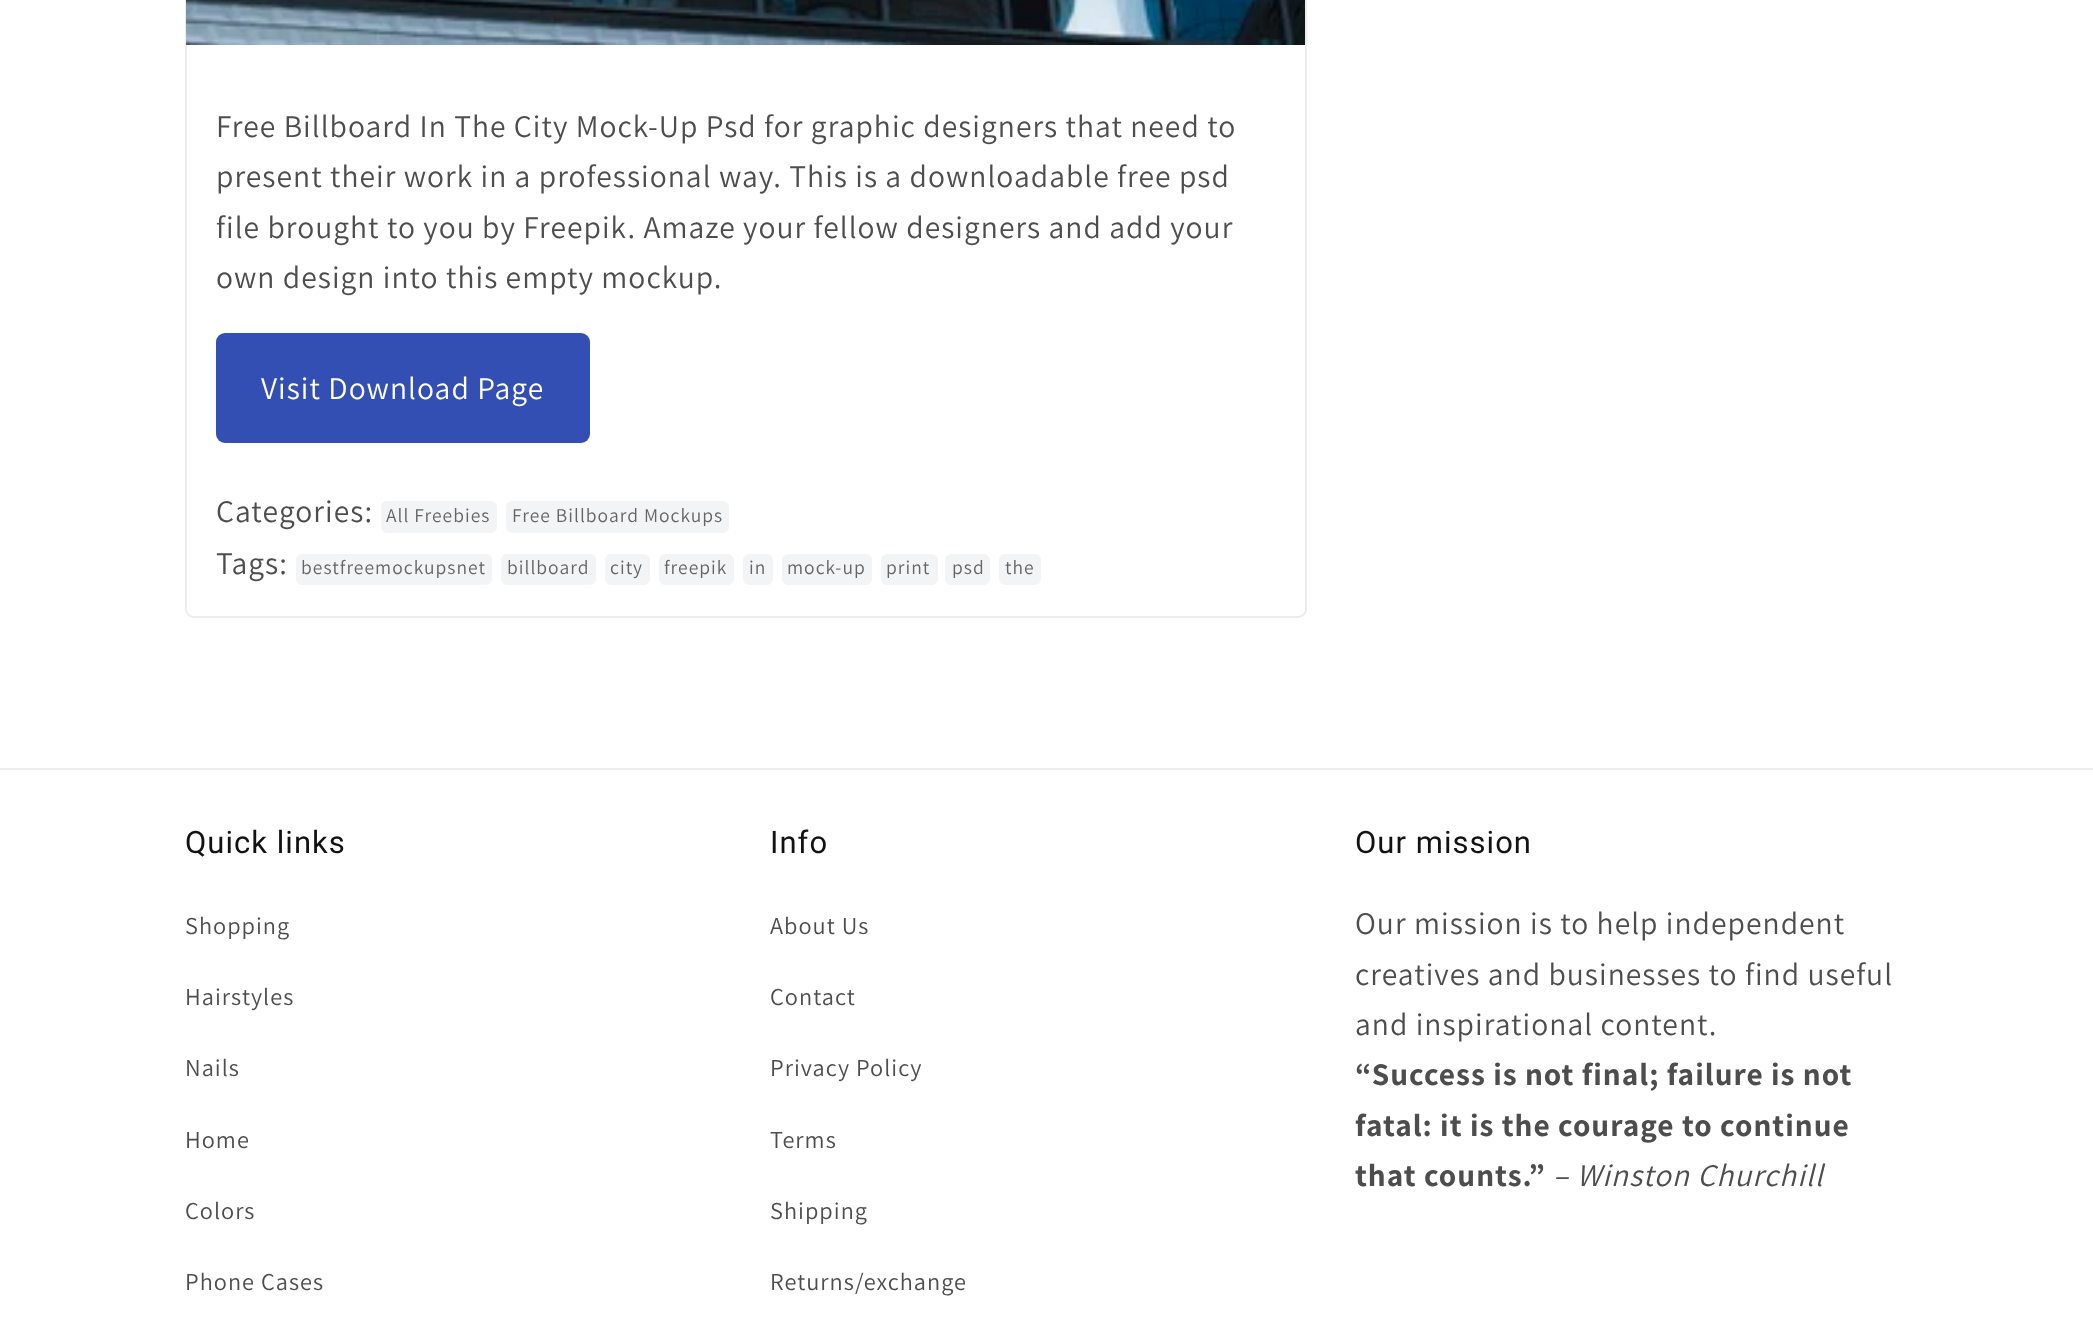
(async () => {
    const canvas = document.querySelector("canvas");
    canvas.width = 2093;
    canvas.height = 1320;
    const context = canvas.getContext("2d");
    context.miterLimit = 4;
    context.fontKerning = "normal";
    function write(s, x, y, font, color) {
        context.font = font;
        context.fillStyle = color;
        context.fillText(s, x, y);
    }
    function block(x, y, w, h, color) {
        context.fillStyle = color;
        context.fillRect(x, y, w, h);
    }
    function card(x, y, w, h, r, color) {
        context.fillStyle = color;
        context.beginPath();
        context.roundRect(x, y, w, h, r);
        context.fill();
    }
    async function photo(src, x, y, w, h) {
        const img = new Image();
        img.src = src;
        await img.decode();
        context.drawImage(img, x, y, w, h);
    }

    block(0, 0, 2093, 1320, "rgb(255, 255, 255)");
    context.beginPath();
    context.roundRect(186, -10, 1120, 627, 8);
    context.strokeStyle = "rgb(236, 236, 236)";
    context.lineWidth = 2;
    context.stroke();
    await photo("media/1.png", 186, 0, 1119, 45);
    context.letterSpacing = "1.03px";
    write("Free Billboard In The City Mock-Up Psd for graphic designers that need to", 216, 137, "31.5px Assistant", "rgb(77, 77, 77)");
    write("present their work in a professional way. This is a downloadable free psd", 216, 187, "31.5px Assistant", "rgb(77, 77, 77)");
    write("file brought to you by Freepik. Amaze your fellow designers and add your", 216, 238, "31.5px Assistant", "rgb(77, 77, 77)");
    write("own design into this empty mockup.", 216, 288, "31.5px Assistant", "rgb(77, 77, 77)");
    card(216, 333, 374, 110, 9, "rgb(51, 79, 180)");
    write("Visit Download Page", 261, 399, "31.5px Assistant", "rgb(255, 255, 255)");
    write("Categories:", 216, 522, "31.5px Assistant", "rgb(77, 77, 77)");
    card(381, 501, 116, 32, 6, "rgb(243, 244, 246)");
    write("All Freebies", 386, 522, "19.5px Assistant", "rgb(101, 101, 101)");
    card(506, 501, 223, 32, 6, "rgb(243, 244, 246)");
    write("Free Billboard Mockups", 512, 522, "19.5px Assistant", "rgb(101, 101, 101)");
    write("Tags:", 216, 574, "31.5px Assistant", "rgb(77, 77, 77)");
    card(296, 554, 196, 31, 6, "rgb(243, 244, 246)");
    write("bestfreemockupsnet", 301, 574, "19.5px Assistant", "rgb(101, 101, 101)");
    card(501, 554, 95, 31, 6, "rgb(243, 244, 246)");
    write("billboard", 507, 574, "19.5px Assistant", "rgb(101, 101, 101)");
    card(605, 554, 45, 31, 6, "rgb(243, 244, 246)");
    write("city", 610, 574, "19.5px Assistant", "rgb(101, 101, 101)");
    card(659, 554, 75, 31, 6, "rgb(243, 244, 246)");
    write("freepik", 664, 574, "19.5px Assistant", "rgb(101, 101, 101)");
    card(743, 554, 30, 31, 6, "rgb(243, 244, 246)");
    write("in", 749, 574, "19.5px Assistant", "rgb(101, 101, 101)");
    card(782, 554, 90, 31, 6, "rgb(243, 244, 246)");
    write("mock-up", 787, 574, "19.5px Assistant", "rgb(101, 101, 101)");
    card(881, 554, 57, 31, 6, "rgb(243, 244, 246)");
    write("print", 886, 574, "19.5px Assistant", "rgb(101, 101, 101)");
    card(945, 554, 45, 31, 6, "rgb(243, 244, 246)");
    write("psd", 952, 574, "19.5px Assistant", "rgb(101, 101, 101)");
    card(999, 554, 42, 31, 6, "rgb(243, 244, 246)");
    write("the", 1005, 574, "19.5px Assistant", "rgb(101, 101, 101)");
    block(0, 768, 2093, 2, "rgb(236, 236, 236)");
    write("Quick links", 185, 853, "31px Roboto", "rgb(18, 18, 18)");
    write("Shopping", 185, 934, "24.25px Assistant", "rgb(77, 77, 77)");
    write("Hairstyles", 185, 1005, "24.25px Assistant", "rgb(77, 77, 77)");
    write("Nails", 185, 1076, "24.25px Assistant", "rgb(77, 77, 77)");
    write("Home", 185, 1148, "24.25px Assistant", "rgb(77, 77, 77)");
    write("Colors", 185, 1219, "24.25px Assistant", "rgb(77, 77, 77)");
    write("Phone Cases", 185, 1290, "24.25px Assistant", "rgb(77, 77, 77)");
    write("Info", 770, 853, "31px Roboto", "rgb(18, 18, 18)");
    write("About Us", 770, 934, "24.25px Assistant", "rgb(77, 77, 77)");
    write("Contact", 770, 1005, "24.25px Assistant", "rgb(77, 77, 77)");
    write("Privacy Policy", 770, 1076, "24.25px Assistant", "rgb(77, 77, 77)");
    write("Terms", 770, 1148, "24.25px Assistant", "rgb(77, 77, 77)");
    write("Shipping", 770, 1219, "24.25px Assistant", "rgb(77, 77, 77)");
    write("Returns/exchange", 770, 1290, "24.25px Assistant", "rgb(77, 77, 77)");
    write("Our mission", 1355, 853, "31px Roboto", "rgb(18, 18, 18)");
    write("Our mission is to help independent", 1355, 934, "31.5px Assistant", "rgb(77, 77, 77)");
    write("creatives and businesses to find useful", 1355, 985, "31.5px Assistant", "rgb(77, 77, 77)");
    write("and inspirational content.", 1355, 1035, "31.5px Assistant", "rgb(77, 77, 77)");
    write("“Success is not final; failure is not", 1355, 1085, "bold 31.5px Assistant", "rgb(77, 77, 77)");
    write("fatal: it is the courage to continue", 1355, 1136, "bold 31.5px Assistant", "rgb(77, 77, 77)");
    write("that counts.”", 1355, 1186, "bold 31.5px Assistant", "rgb(77, 77, 77)");
    write("– Winston Churchill", 1553, 1186, "italic 31.5px Assistant", "rgb(77, 77, 77)");
})();
